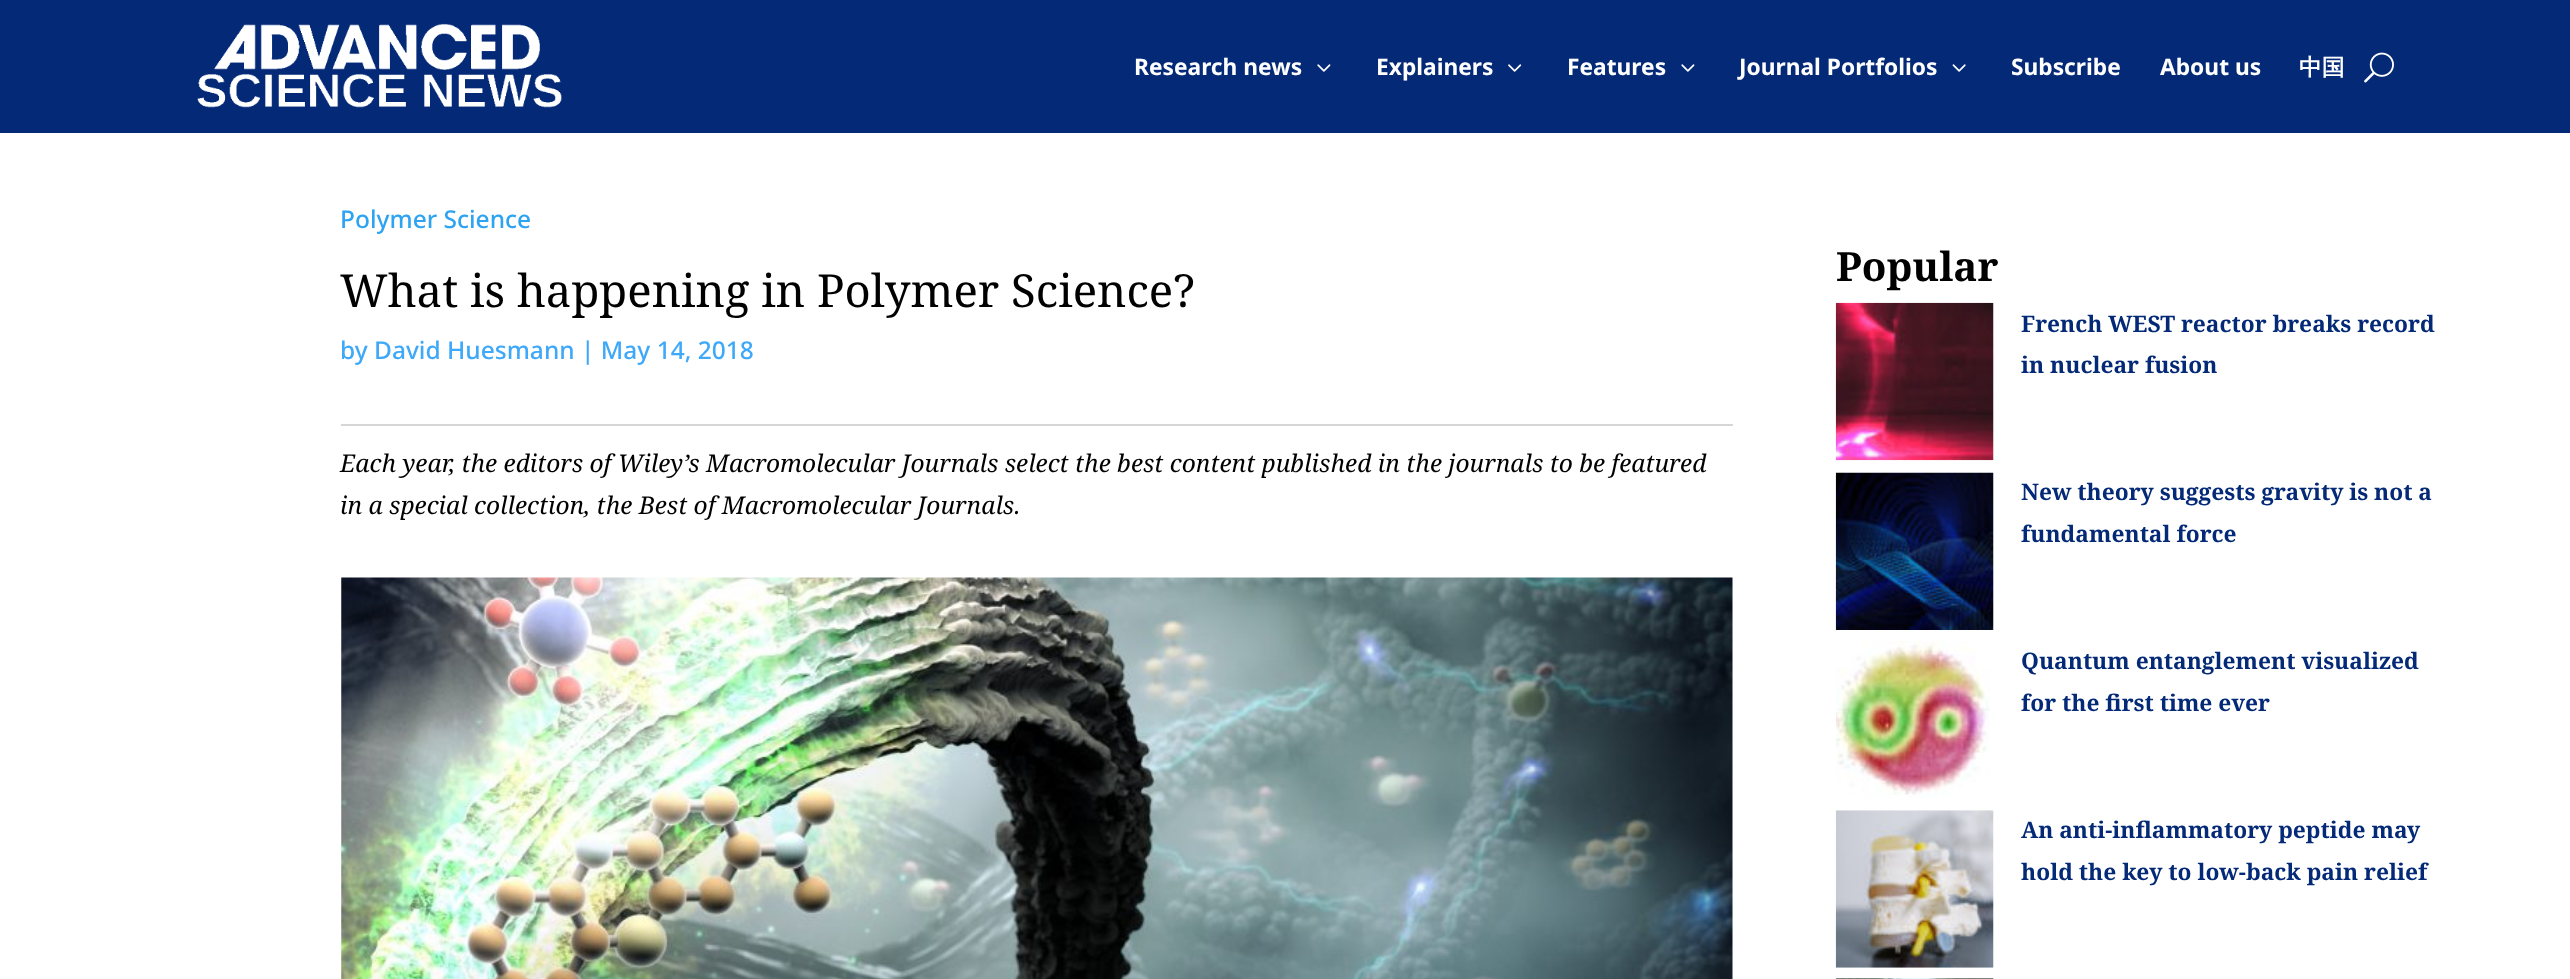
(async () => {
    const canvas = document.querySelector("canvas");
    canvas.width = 2570;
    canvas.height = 979;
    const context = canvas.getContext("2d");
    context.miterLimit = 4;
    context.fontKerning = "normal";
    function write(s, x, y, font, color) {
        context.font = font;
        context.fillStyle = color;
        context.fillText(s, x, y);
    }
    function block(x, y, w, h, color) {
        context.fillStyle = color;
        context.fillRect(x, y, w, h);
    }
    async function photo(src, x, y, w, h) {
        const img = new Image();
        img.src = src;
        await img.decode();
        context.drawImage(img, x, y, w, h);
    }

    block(0, 0, 2570, 979, "rgb(255, 255, 255)");
    block(0, 0, 2570, 133, "rgb(3, 41, 119)");
    await photo("media/1.png", 197, 23, 365, 85);
    write("Research news", 1134, 75, "bold 22.75px Noto Sans", "rgb(255, 255, 255)");
    await photo("media/2.png", 1317, 64, 14, 8);
    write("Explainers", 1376, 75, "bold 22.75px Noto Sans", "rgb(255, 255, 255)");
    await photo("media/3.png", 1508, 64, 14, 8);
    write("Features", 1567, 75, "bold 22.75px Noto Sans", "rgb(255, 255, 255)");
    await photo("media/2.png", 1681, 64, 14, 8);
    write("Journal Portfolios", 1739, 75, "bold 22.75px Noto Sans", "rgb(255, 255, 255)");
    await photo("media/4.png", 1952, 64, 14, 8);
    write("Subscribe", 2011, 75, "bold 22.75px Noto Sans", "rgb(255, 255, 255)");
    write("About us", 2160, 75, "bold 22.75px Noto Sans", "rgb(255, 255, 255)");
    write("中国", 2299, 75, "bold 22.75px WenQuanYi Zen Hei", "rgb(255, 255, 255)");
    await photo("media/5.png", 2364, 52, 30, 31);
    write("Polymer Science", 340, 228, "500 24.5px Noto Sans", "rgb(46, 163, 242)");
    write("What is happening in Polymer Science?", 340, 307, "45.5px Noto Serif", "rgb(0, 0, 0)");
    write("by David Huesmann | May 14, 2018", 340, 359, "500 24.5px Noto Sans", "rgb(62, 168, 249)");
    block(341, 424, 1392, 2, "rgb(214, 214, 214)");
    write("Each year, the editors of Wiley’s Macromolecular Journals select the best content published in the journals to be featured", 340, 472, "italic 24.5px Noto Serif", "rgb(0, 0, 0)");
    write("in a special collection, the Best of Macromolecular Journals.", 340, 514, "italic 24.5px Noto Serif", "rgb(0, 0, 0)");
    await photo("media/6.png", 341, 577, 1392, 402);
    write("Popular", 1836, 281, "bold 40.25px Noto Serif", "rgb(0, 0, 0)");
    await photo("media/7.png", 1835, 302, 159, 159);
    write("French WEST reactor breaks record", 2021, 332, "bold 22.75px Noto Serif", "rgb(3, 41, 119)");
    write("in nuclear fusion", 2021, 373, "bold 22.75px Noto Serif", "rgb(3, 41, 119)");
    await photo("media/8.png", 1835, 472, 159, 158);
    write("New theory suggests gravity is not a", 2021, 500, "bold 22.75px Noto Serif", "rgb(3, 41, 119)");
    write("fundamental force", 2021, 542, "bold 22.75px Noto Serif", "rgb(3, 41, 119)");
    await photo("media/9.png", 1836, 641, 154, 157);
    write("Quantum entanglement visualized", 2021, 669, "bold 22.75px Noto Serif", "rgb(3, 41, 119)");
    write("for the first time ever", 2021, 711, "bold 22.75px Noto Serif", "rgb(3, 41, 119)");
    await photo("media/10.png", 1835, 810, 159, 158);
    write("An anti-inflammatory peptide may", 2021, 838, "bold 22.75px Noto Serif", "rgb(3, 41, 119)");
    write("hold the key to low-back pain relief", 2021, 880, "bold 22.75px Noto Serif", "rgb(3, 41, 119)");
    await photo("media/11.png", 1835, 978, 159, 1);
})();
